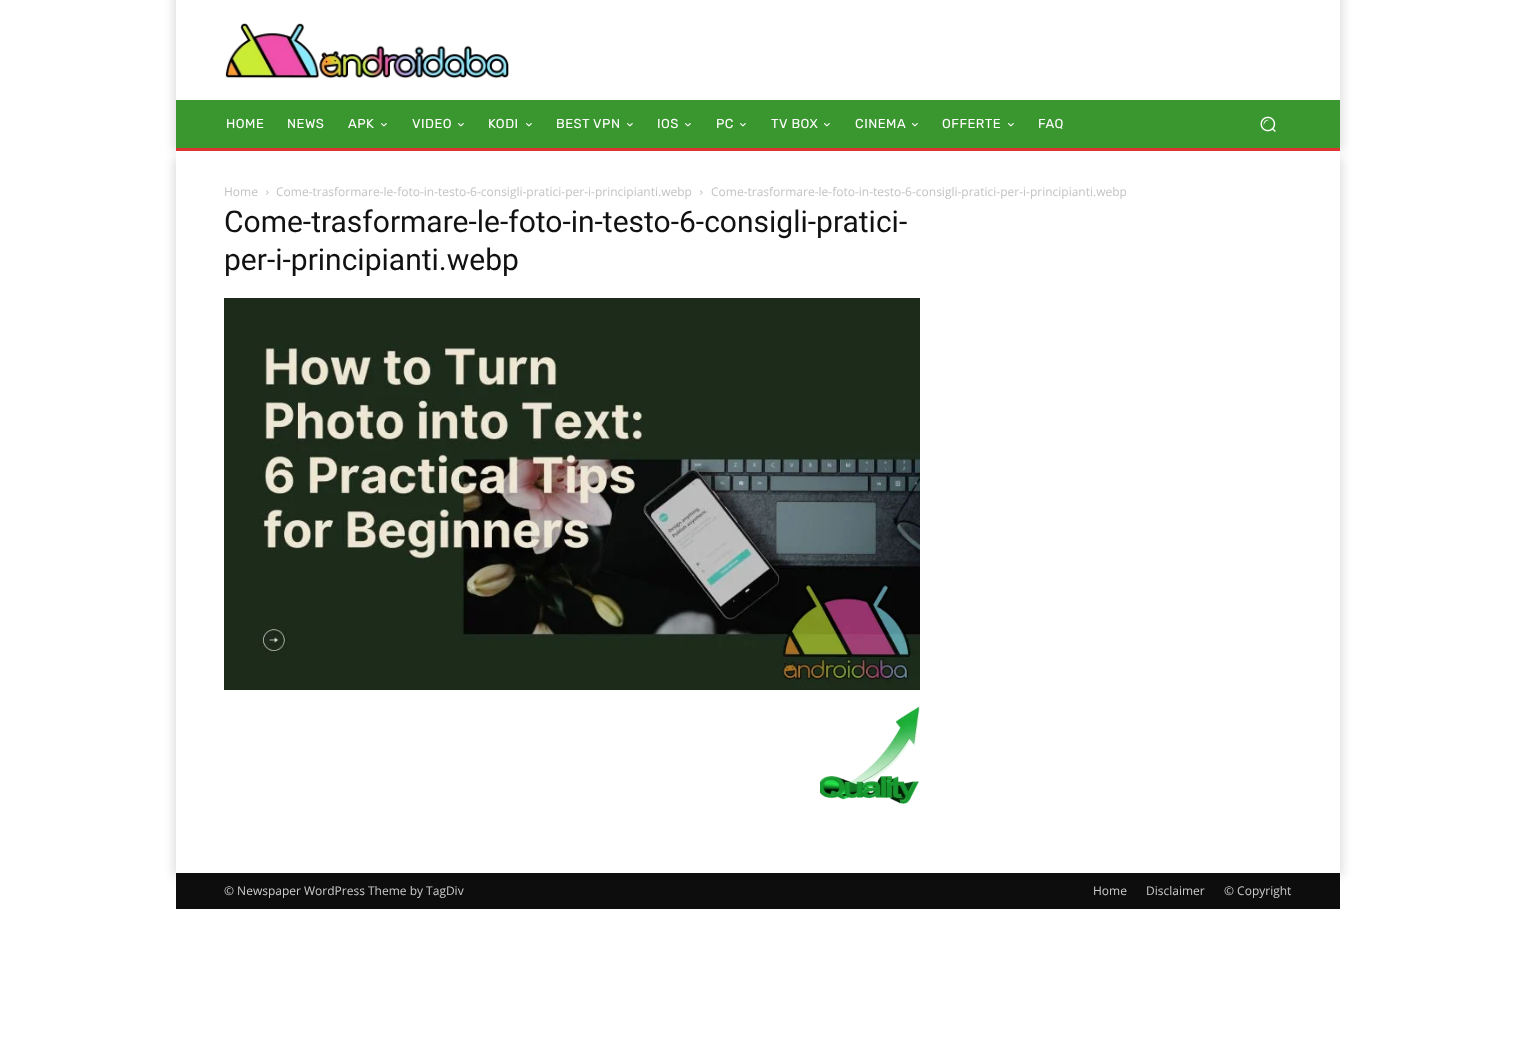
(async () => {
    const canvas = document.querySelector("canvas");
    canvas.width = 1515;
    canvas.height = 1055;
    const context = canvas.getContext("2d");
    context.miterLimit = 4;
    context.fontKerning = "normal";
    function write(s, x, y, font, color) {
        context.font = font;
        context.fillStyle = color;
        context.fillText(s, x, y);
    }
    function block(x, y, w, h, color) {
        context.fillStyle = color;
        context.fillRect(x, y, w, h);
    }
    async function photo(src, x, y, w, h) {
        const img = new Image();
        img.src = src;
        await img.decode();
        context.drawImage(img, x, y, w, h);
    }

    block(0, 0, 1515, 1055, "rgb(255, 255, 255)");
    context.fillStyle = "rgba(0, 0, 0, 0.12)";
    context.filter = "blur(5px)";
    context.beginPath();
    context.rect(173, -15, 1170, 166);
    context.fill();
    context.filter = "none";
    context.save();
    context.beginPath();
    context.moveTo(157, 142);
    context.lineTo(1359, 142);
    context.lineTo(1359, 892);
    context.lineTo(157, 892);
    context.closePath();
    context.moveTo(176, 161);
    context.lineTo(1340, 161);
    context.lineTo(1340, 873);
    context.lineTo(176, 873);
    context.closePath();
    context.clip("evenodd");
    context.filter = "blur(5px)";
    context.beginPath();
    context.rect(173, 158, 1170, 718);
    context.fill();
    context.filter = "none";
    context.restore();
    block(176, 0, 1164, 161, "rgb(255, 255, 255)");
    await photo("media/1.png", 225, 23, 284, 56);
    block(176, 100, 1164, 48, "rgb(58, 150, 46)");
    context.letterSpacing = "0.5px";
    write("HOME", 226, 128, "13px Rubik", "rgb(255, 255, 255)");
    write("NEWS", 287, 128, "13px Rubik", "rgb(255, 255, 255)");
    write("APK", 348, 128, "13px Rubik", "rgb(255, 255, 255)");
    await photo("media/2.png", 381, 123, 6, 4);
    write("VIDEO", 412, 128, "13px Rubik", "rgb(255, 255, 255)");
    await photo("media/2.png", 458, 123, 6, 4);
    write("KODI", 488, 128, "13px Rubik", "rgb(255, 255, 255)");
    await photo("media/2.png", 526, 123, 6, 4);
    write("BEST VPN", 556, 128, "13px Rubik", "rgb(255, 255, 255)");
    await photo("media/2.png", 627, 123, 6, 4);
    write("IOS", 657, 128, "13px Rubik", "rgb(255, 255, 255)");
    await photo("media/2.png", 685, 123, 6, 4);
    write("PC", 716, 128, "13px Rubik", "rgb(255, 255, 255)");
    await photo("media/2.png", 740, 123, 6, 4);
    write("TV BOX", 771, 128, "13px Rubik", "rgb(255, 255, 255)");
    await photo("media/2.png", 824, 123, 6, 4);
    write("CINEMA", 855, 128, "13px Rubik", "rgb(255, 255, 255)");
    await photo("media/2.png", 912, 123, 6, 4);
    write("OFFERTE", 942, 128, "13px Rubik", "rgb(255, 255, 255)");
    await photo("media/2.png", 1008, 123, 6, 4);
    write("FAQ", 1038, 128, "13px Rubik", "rgb(255, 255, 255)");
    await photo("media/3.png", 1260, 116, 16, 16);
    block(176, 148, 1164, 3, "rgb(221, 51, 51)");
    context.letterSpacing = "0px";
    write("Home", 224, 196, "12px Open Sans", "rgb(195, 195, 195)");
    await photo("media/4.png", 266, 190, 3, 5);
    write("Come-trasformare-le-foto-in-testo-6-consigli-pratici-per-i-principianti.webp", 276, 196, "12px Open Sans", "rgb(195, 195, 195)");
    await photo("media/4.png", 700, 190, 3, 5);
    write("Come-trasformare-le-foto-in-testo-6-consigli-pratici-per-i-principianti.webp", 711, 196, "12px Open Sans", "rgb(195, 195, 195)");
    write("Come-trasformare-le-foto-in-testo-6-consigli-pratici-", 224, 232, "30px Roboto", "rgb(17, 17, 17)");
    write("per-i-principianti.webp", 224, 270, "30px Roboto", "rgb(17, 17, 17)");
    await photo("media/5.png", 224, 298, 696, 392);
    await photo("media/6.png", 820, 706, 100, 98);
    block(176, 873, 1164, 36, "rgb(13, 13, 13)");
    write("© Newspaper WordPress Theme by TagDiv", 224, 895, "12px Open Sans", "rgb(204, 204, 204)");
    write("Home", 1093, 895, "12px Open Sans", "rgb(204, 204, 204)");
    write("Disclaimer", 1146, 895, "12px Open Sans", "rgb(204, 204, 204)");
    write("© Copyright", 1224, 895, "12px Open Sans", "rgb(204, 204, 204)");
})();
